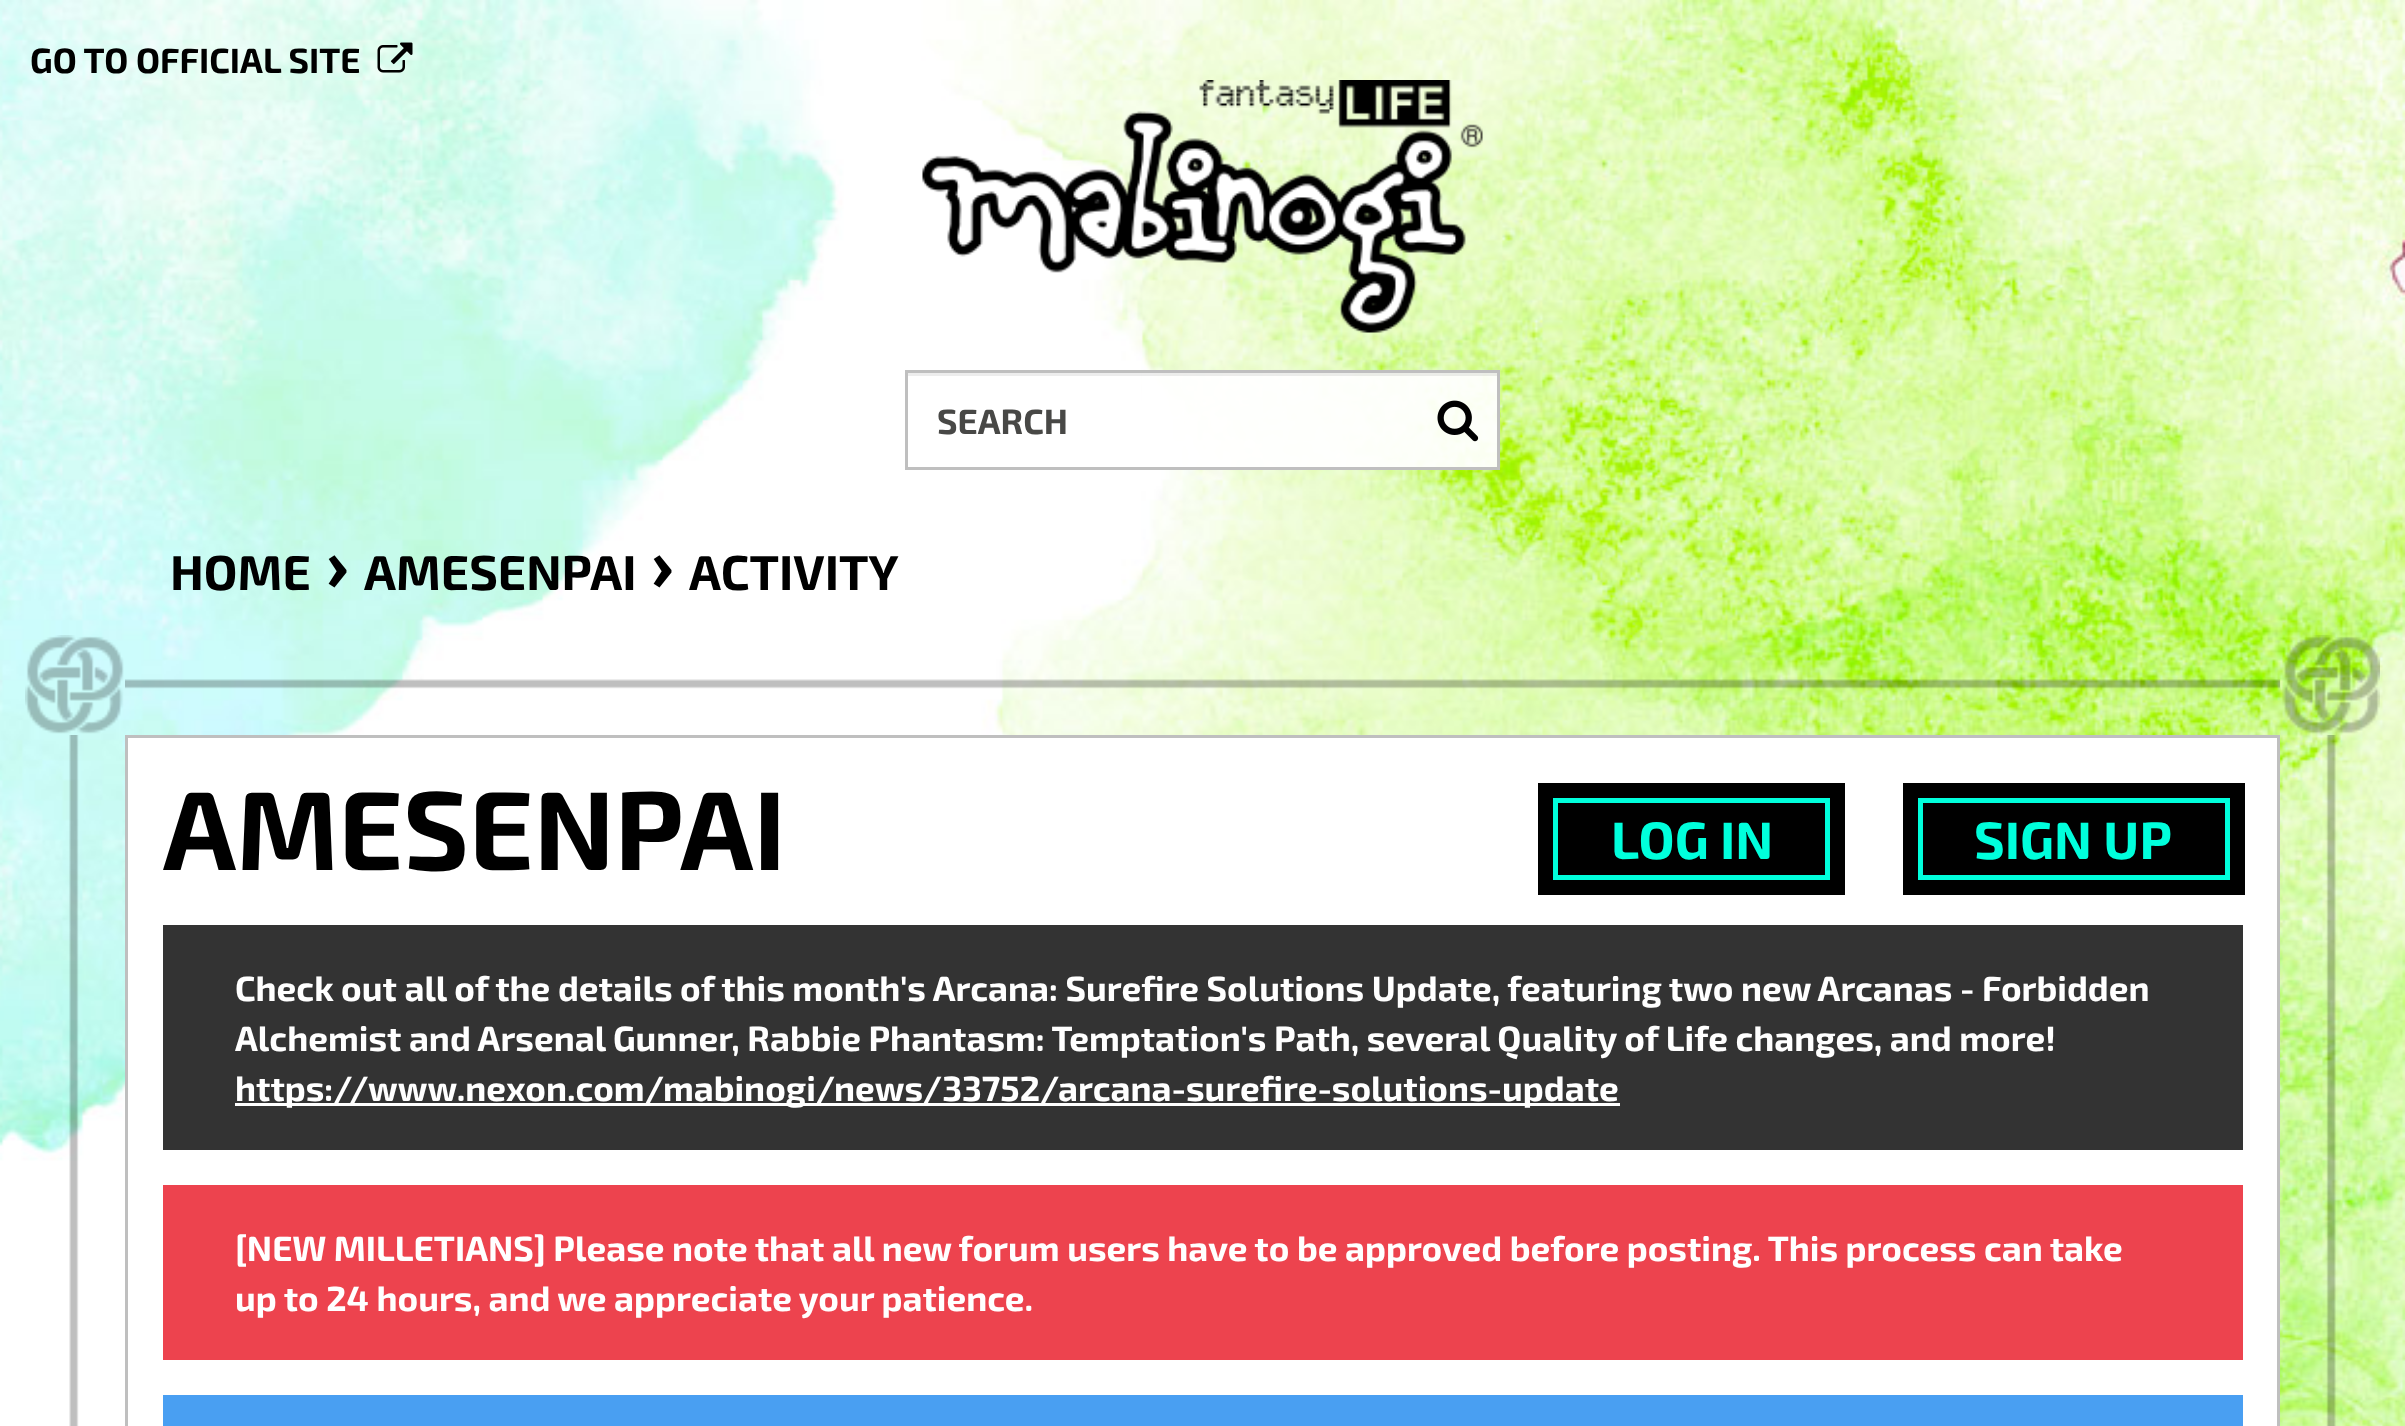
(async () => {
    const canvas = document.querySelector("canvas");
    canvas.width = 2405;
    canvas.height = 1426;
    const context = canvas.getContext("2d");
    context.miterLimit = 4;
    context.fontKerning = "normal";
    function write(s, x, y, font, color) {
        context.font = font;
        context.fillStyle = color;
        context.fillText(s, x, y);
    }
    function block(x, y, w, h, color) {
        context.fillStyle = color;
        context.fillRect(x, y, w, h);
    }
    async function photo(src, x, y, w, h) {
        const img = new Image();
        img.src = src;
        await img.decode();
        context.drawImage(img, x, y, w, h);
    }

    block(0, 0, 2405, 1426, "rgb(255, 255, 255)");
    await photo("media/1.png", 0, 0, 2405, 1426);
    write("GO TO OFFICIAL SITE", 30, 73, "bold 35px 'Exo 2'", "rgb(0, 0, 0)");
    await photo("media/2.png", 377, 42, 36, 31);
    await photo("media/3.png", 922, 80, 561, 253);
    block(1142, 373, 355, 94, "rgba(255, 255, 255, 0.95)");
    block(908, 373, 590, 3, "rgba(0, 0, 0, 0.07)");
    context.strokeStyle = "rgb(191, 191, 191)";
    context.lineWidth = 3;
    context.strokeRect(906.5, 371.5, 592, 97);
    write("SEARCH", 937, 434, "bold 35px 'Exo 2'", "rgb(72, 72, 70)");
    await photo("media/4.png", 1437, 400, 42, 42);
    write("HOME", 170, 590, "bold 49px 'Exo 2'", "rgb(0, 0, 0)");
    write("›", 326, 590, "bold 75px 'Exo 2'", "rgb(0, 0, 0)");
    write("AMESENPAI", 364, 590, "bold 49px 'Exo 2'", "rgb(0, 0, 0)");
    write("›", 651, 590, "bold 75px 'Exo 2'", "rgb(0, 0, 0)");
    write("ACTIVITY", 689, 590, "bold 49px 'Exo 2'", "rgb(0, 0, 0)");
    await photo("media/5.png", 25, 635, 2355, 791);
    context.fillStyle = "rgb(255, 255, 255)";
    context.beginPath();
    context.rect(126.5, 736.5, 2152, 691);
    context.fill();
    context.stroke();
    write("AMESENPAI", 163, 870, "bold 112px 'Exo 2'", "rgb(0, 0, 0)");
    block(163, 925, 2080, 225, "rgb(51, 51, 51)");
    write("Check out all of the details of this month's Arcana: Surefire Solutions Update, featuring two new Arcanas - Forbidden", 235, 1001, "bold 35px 'Exo 2'", "rgb(255, 255, 255)");
    write("Alchemist and Arsenal Gunner, Rabbie Phantasm: Temptation's Path, several Quality of Life changes, and more!", 235, 1051, "bold 35px 'Exo 2'", "rgb(255, 255, 255)");
    block(235, 1103, 1385, 3, "rgb(255, 255, 255)");
    write("https://www.nexon.com/mabinogi/news/33752/arcana-surefire-solutions-update", 235, 1101, "bold 35px 'Exo 2'", "rgb(255, 255, 255)");
    block(163, 1185, 2080, 175, "rgb(237, 67, 78)");
    write("[NEW MILLETIANS] Please note that all new forum users have to be approved before posting. This process can take", 235, 1261, "bold 35px 'Exo 2'", "rgb(255, 255, 255)");
    write("up to 24 hours, and we appreciate your patience.", 235, 1311, "bold 35px 'Exo 2'", "rgb(255, 255, 255)");
    block(163, 1395, 2080, 31, "rgb(73, 159, 242)");
    context.fillStyle = "rgb(0, 0, 0)";
    context.beginPath();
    context.rect(1555.5, 800.5, 272, 77);
    context.fill();
    context.strokeStyle = "rgb(0, 255, 220)";
    context.lineWidth = 5;
    context.stroke();
    write("LOG IN", 1611, 859, "bold 52.5px 'Exo 2'", "rgb(0, 255, 220)");
    context.strokeStyle = "rgb(0, 0, 0)";
    context.lineWidth = 15;
    context.strokeRect(1545.5, 790.5, 292, 97);
    context.fillStyle = "rgb(0, 0, 0)";
    context.beginPath();
    context.rect(1920.5, 800.5, 307, 77);
    context.fill();
    context.strokeStyle = "rgb(0, 255, 220)";
    context.lineWidth = 5;
    context.stroke();
    write("SIGN UP", 1974, 859, "bold 52.5px 'Exo 2'", "rgb(0, 255, 220)");
    context.strokeStyle = "rgb(0, 0, 0)";
    context.lineWidth = 15;
    context.strokeRect(1910.5, 790.5, 327, 97);
})();
